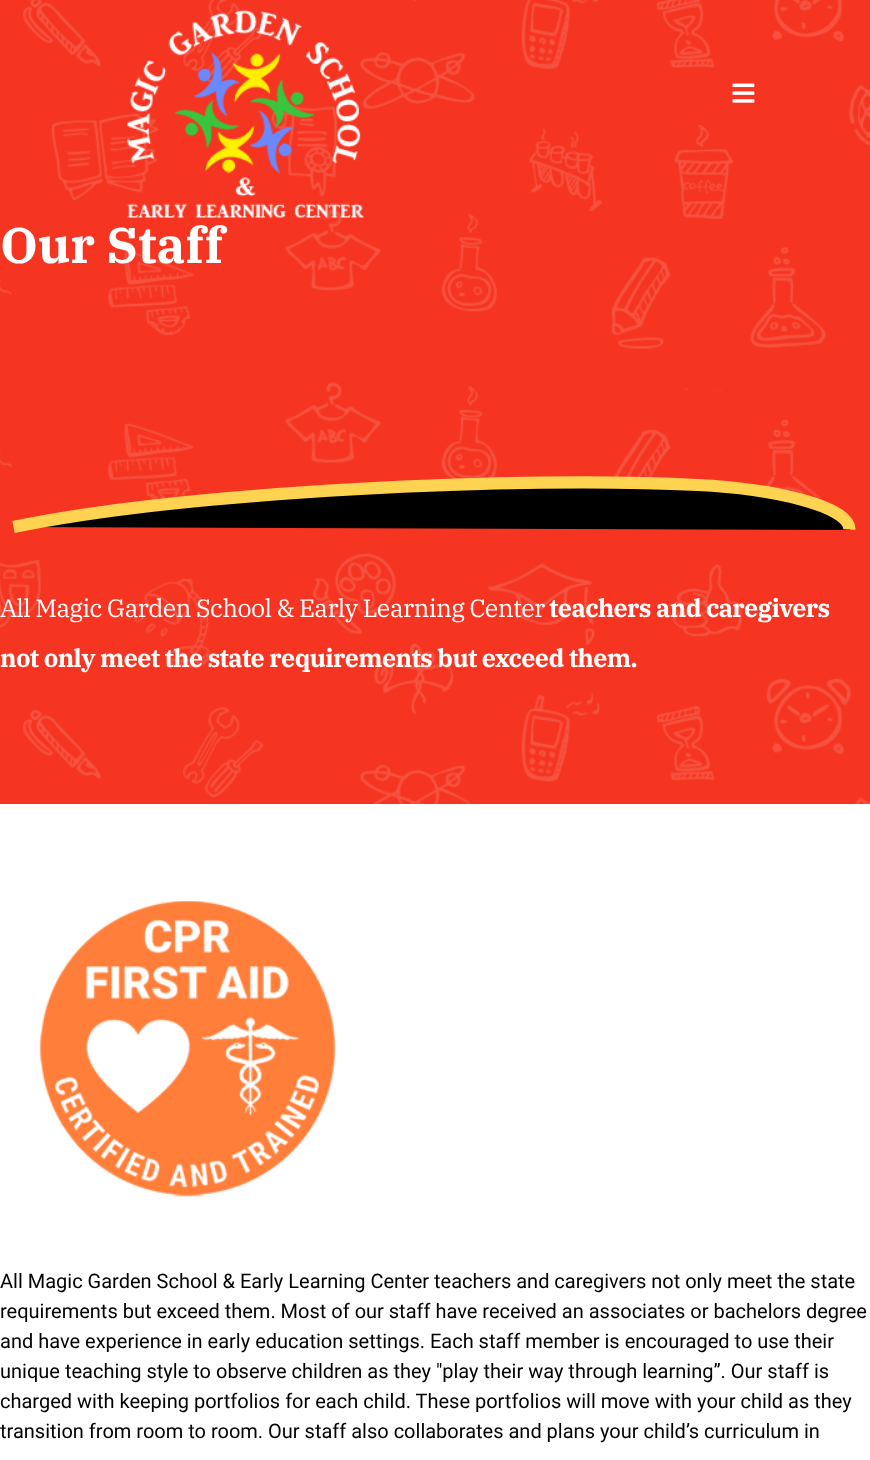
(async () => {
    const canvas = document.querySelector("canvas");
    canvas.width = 870;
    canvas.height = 1460;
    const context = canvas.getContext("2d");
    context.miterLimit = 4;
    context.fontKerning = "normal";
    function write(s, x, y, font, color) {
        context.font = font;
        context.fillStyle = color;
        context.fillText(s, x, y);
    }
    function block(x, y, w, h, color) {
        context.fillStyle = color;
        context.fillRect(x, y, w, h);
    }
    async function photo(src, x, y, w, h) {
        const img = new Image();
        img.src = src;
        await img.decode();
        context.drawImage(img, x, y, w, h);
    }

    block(0, 0, 870, 1460, "rgb(255, 255, 255)");
    block(0, 0, 870, 804, "rgb(245, 53, 33)");
    await photo("media/3.png", 0, 0, 870, 804);
    await photo("media/1.png", 127, 10, 237, 209);
    await photo("media/2.png", 732, 83, 23, 20);
    write("Our Staff", 0, 263, "bold 50px IBM Plex Serif", "rgb(255, 255, 255)");
    context.fillStyle = "rgb(0, 0, 0)";
    context.beginPath();
    context.moveTo(13, 527);
    context.bezierCurveTo(190, 491, 522, 476, 698, 485);
    context.bezierCurveTo(771, 489, 850, 505, 850, 530);
    context.fill();
    context.beginPath();
    context.moveTo(13.5, 527);
    context.bezierCurveTo(189.5, 491, 522, 476, 697.5, 485);
    context.bezierCurveTo(771, 488.5, 850, 505.5, 849.5, 529.5);
    context.strokeStyle = "rgb(255, 211, 82)";
    context.lineWidth = 12.2;
    context.stroke();
    context.letterSpacing = "-0.62px";
    write("All Magic Garden School & Early Learning Center", 0, 617, "25px IBM Plex Serif", "rgb(255, 255, 255)");
    write("teachers and caregivers", 549, 617, "bold 25px IBM Plex Serif", "rgb(255, 255, 255)");
    write("not only meet the state requirements but exceed them.", 0, 667, "bold 25px IBM Plex Serif", "rgb(255, 255, 255)");
    await photo("media/4.png", 39, 901, 297, 296);
    context.letterSpacing = "0px";
    write("All Magic Garden School & Early Learning Center teachers and caregivers not only meet the state", 0, 1288, "20px Roboto", "rgb(0, 0, 0)");
    write("requirements but exceed them. Most of our staff have received an associates or bachelors degree", 0, 1318, "20px Roboto", "rgb(0, 0, 0)");
    write("and have experience in early education settings. Each staff member is encouraged to use their", 0, 1348, "20px Roboto", "rgb(0, 0, 0)");
    write("unique teaching style to observe children as they \"play their way through learning”. Our staff is", 0, 1378, "20px Roboto", "rgb(0, 0, 0)");
    write("charged with keeping portfolios for each child. These portfolios will move with your child as they", 0, 1408, "20px Roboto", "rgb(0, 0, 0)");
    write("transition from room to room. Our staff also collaborates and plans your child’s curriculum in", 0, 1438, "20px Roboto", "rgb(0, 0, 0)");
})();
